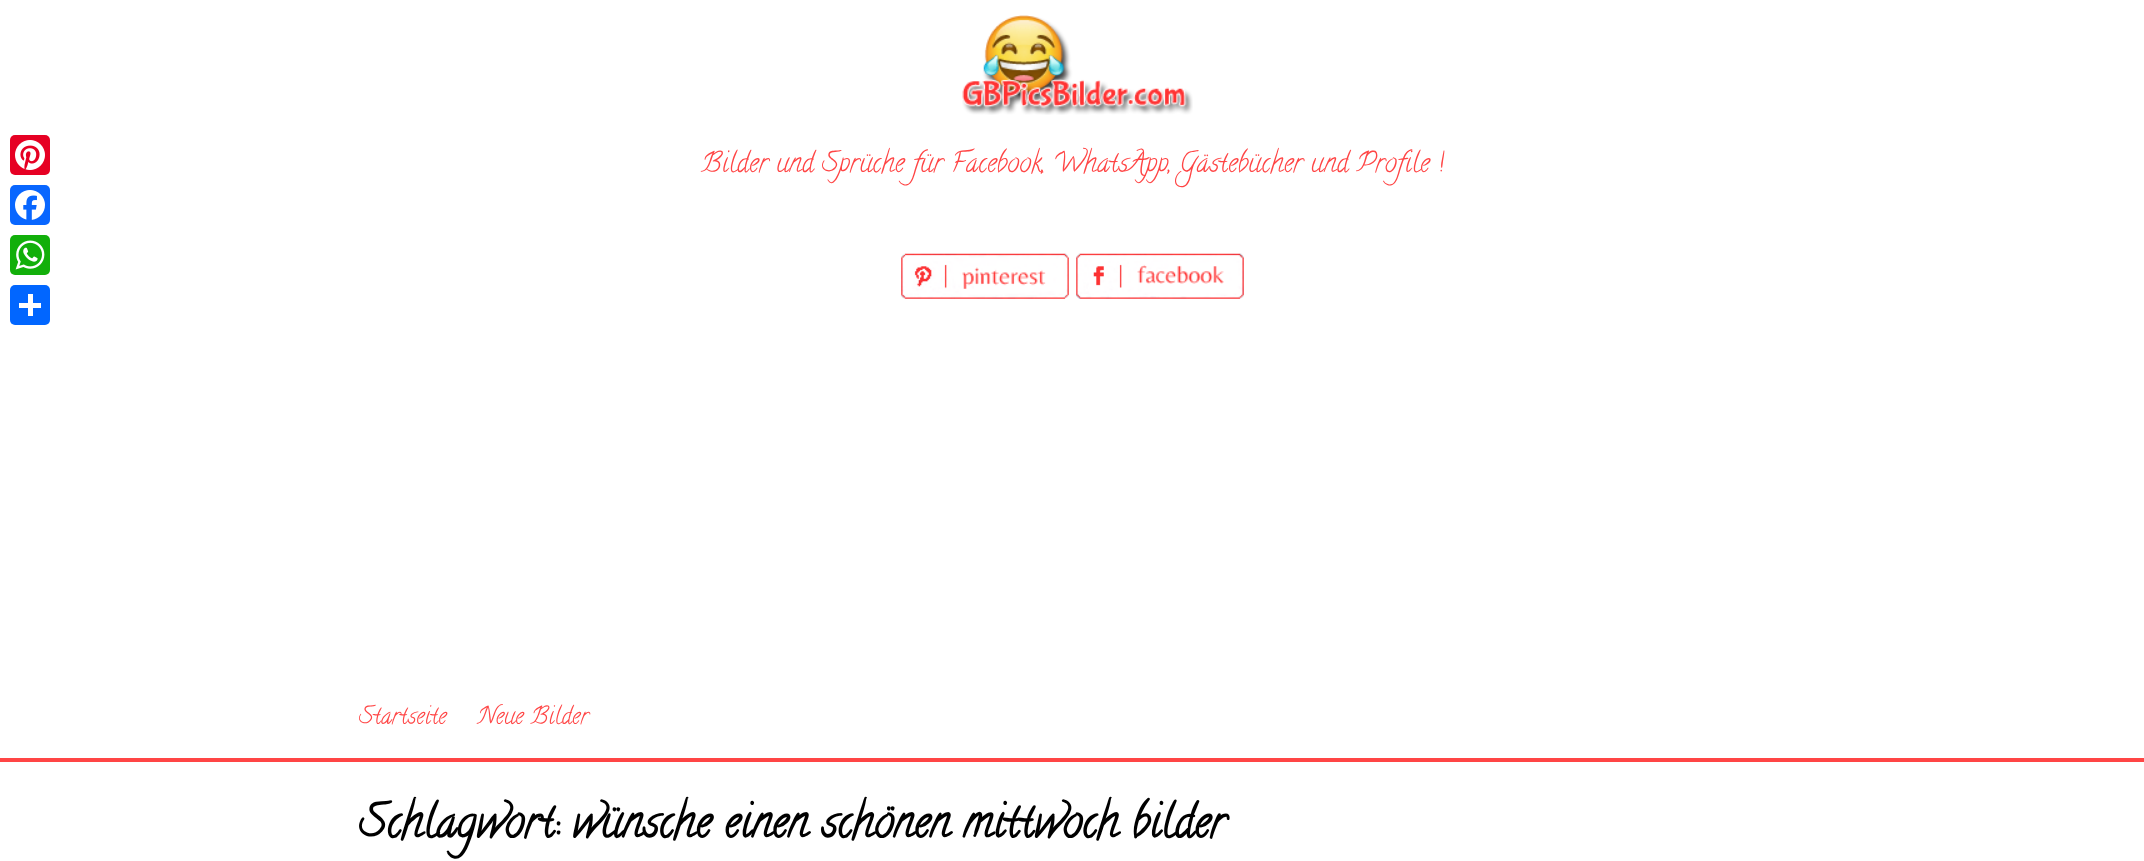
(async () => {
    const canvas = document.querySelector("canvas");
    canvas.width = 2144;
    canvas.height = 861;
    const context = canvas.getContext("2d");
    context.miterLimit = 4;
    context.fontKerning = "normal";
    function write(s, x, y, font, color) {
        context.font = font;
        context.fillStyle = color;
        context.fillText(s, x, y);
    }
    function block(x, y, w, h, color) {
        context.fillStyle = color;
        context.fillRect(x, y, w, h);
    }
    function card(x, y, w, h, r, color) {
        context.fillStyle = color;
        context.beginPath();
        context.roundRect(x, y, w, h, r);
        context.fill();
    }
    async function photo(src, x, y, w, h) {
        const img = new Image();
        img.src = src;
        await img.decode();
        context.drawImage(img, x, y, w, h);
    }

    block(0, 0, 2144, 861, "rgb(255, 255, 255)");
    card(10, 135, 40, 40, 5, "rgb(230, 0, 35)");
    await photo("media/1.png", 15, 140, 30, 30);
    card(10, 185, 40, 40, 5, "rgb(8, 102, 255)");
    await photo("media/2.png", 15, 190, 30, 30);
    card(10, 235, 40, 40, 5, "rgb(18, 175, 10)");
    await photo("media/3.png", 15, 240, 30, 30);
    card(10, 285, 40, 40, 5, "rgb(1, 102, 255)");
    block(28, 294, 5, 22, "rgb(255, 255, 255)");
    block(19, 303, 22, 5, "rgb(255, 255, 255)");
    await photo("media/4.png", 962, 15, 231, 100);
    write("Bilder und Sprüche für Facebook, WhatsApp, Gästebücher und Profile !", 701, 171, "27.5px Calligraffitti", "rgb(255, 69, 69)");
    await photo("media/5.png", 901, 253, 168, 46);
    await photo("media/6.png", 1076, 253, 168, 46);
    block(0, 758, 2144, 4, "rgb(255, 69, 69)");
    write("Startseite", 359, 723, "23.75px Calligraffitti", "rgb(255, 69, 69)");
    write("Neue Bilder", 478, 723, "23.75px Calligraffitti", "rgb(255, 69, 69)");
    write("Schlagwort: wünsche einen schönen mittwoch bilder", 359, 836, "bold 45px Calligraffitti", "rgb(0, 0, 0)");
})();
